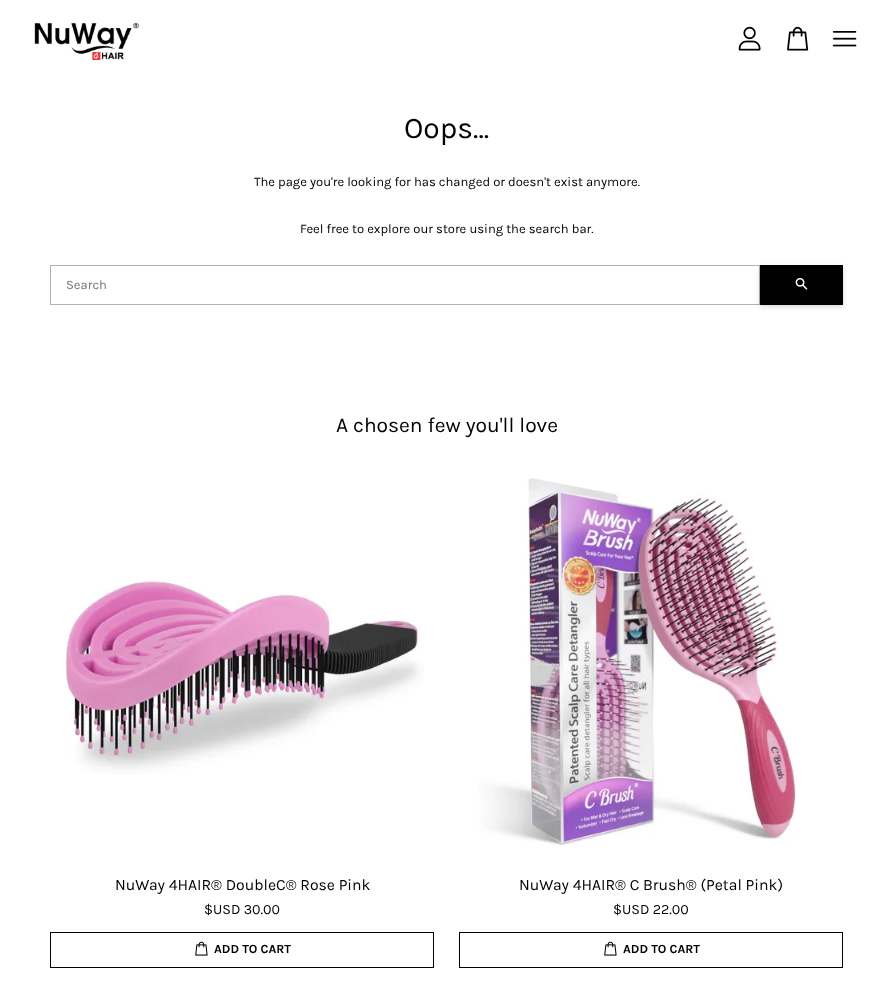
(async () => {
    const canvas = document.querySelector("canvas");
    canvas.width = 893;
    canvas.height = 983;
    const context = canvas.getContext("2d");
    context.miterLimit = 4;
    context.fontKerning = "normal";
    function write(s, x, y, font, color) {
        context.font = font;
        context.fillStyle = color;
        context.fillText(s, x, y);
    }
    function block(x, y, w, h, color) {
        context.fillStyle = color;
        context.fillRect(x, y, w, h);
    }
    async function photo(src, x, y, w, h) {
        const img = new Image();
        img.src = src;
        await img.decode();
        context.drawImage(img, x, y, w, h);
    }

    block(0, 0, 893, 983, "rgb(255, 255, 255)");
    await photo("media/1.png", 34, 23, 106, 38);
    await photo("media/2.png", 738, 26, 23, 25);
    await photo("media/3.png", 787, 26, 22, 25);
    await photo("media/4.png", 832, 31, 25, 16);
    write("Oops...", 404, 138, "30px Karla", "rgb(0, 0, 0)");
    write("The page you're looking for has changed or doesn't exist anymore.", 254, 186, "13px Karla", "rgb(0, 0, 0)");
    write("Feel free to explore our store using the search bar.", 300, 233, "13px Karla", "rgb(0, 0, 0)");
    context.strokeStyle = "rgb(177, 177, 177)";
    context.strokeRect(50.5, 265.5, 709, 39);
    write("Search", 66, 289, "13px Karla", "rgb(117, 117, 117)");
    context.fillStyle = "rgba(0, 0, 0, 0.15)";
    context.filter = "blur(2.5px)";
    context.beginPath();
    context.rect(760, 267, 83, 40);
    context.fill();
    context.filter = "none";
    block(760, 265, 83, 40, "rgb(0, 0, 0)");
    await photo("media/5.png", 795, 278, 13, 12);
    write("A chosen few you'll love", 336, 432, "21px Karla", "rgb(0, 0, 0)");
    await photo("media/6.png", 65, 580, 359, 194);
    write("NuWay 4HAIR® DoubleC® Rose Pink", 115, 890, "15.75px Karla", "rgb(0, 0, 0)");
    write("$USD 30.00", 204, 914, "14.25px Karla", "rgb(0, 0, 0)");
    context.strokeStyle = "rgb(0, 0, 0)";
    context.strokeRect(50.5, 932.5, 383, 35);
    await photo("media/7.png", 195, 941, 13, 15);
    write("ADD TO CART", 214, 953, "bold 12.5px Karla", "rgb(0, 0, 0)");
    await photo("media/8.png", 479, 478, 317, 368);
    write("NuWay 4HAIR® C Brush® (Petal Pink)", 519, 890, "15.75px Karla", "rgb(0, 0, 0)");
    write("$USD 22.00", 613, 914, "14.25px Karla", "rgb(0, 0, 0)");
    context.strokeRect(459.5, 932.5, 383, 35);
    await photo("media/7.png", 604, 941, 13, 15);
    write("ADD TO CART", 623, 953, "bold 12.5px Karla", "rgb(0, 0, 0)");
})();
